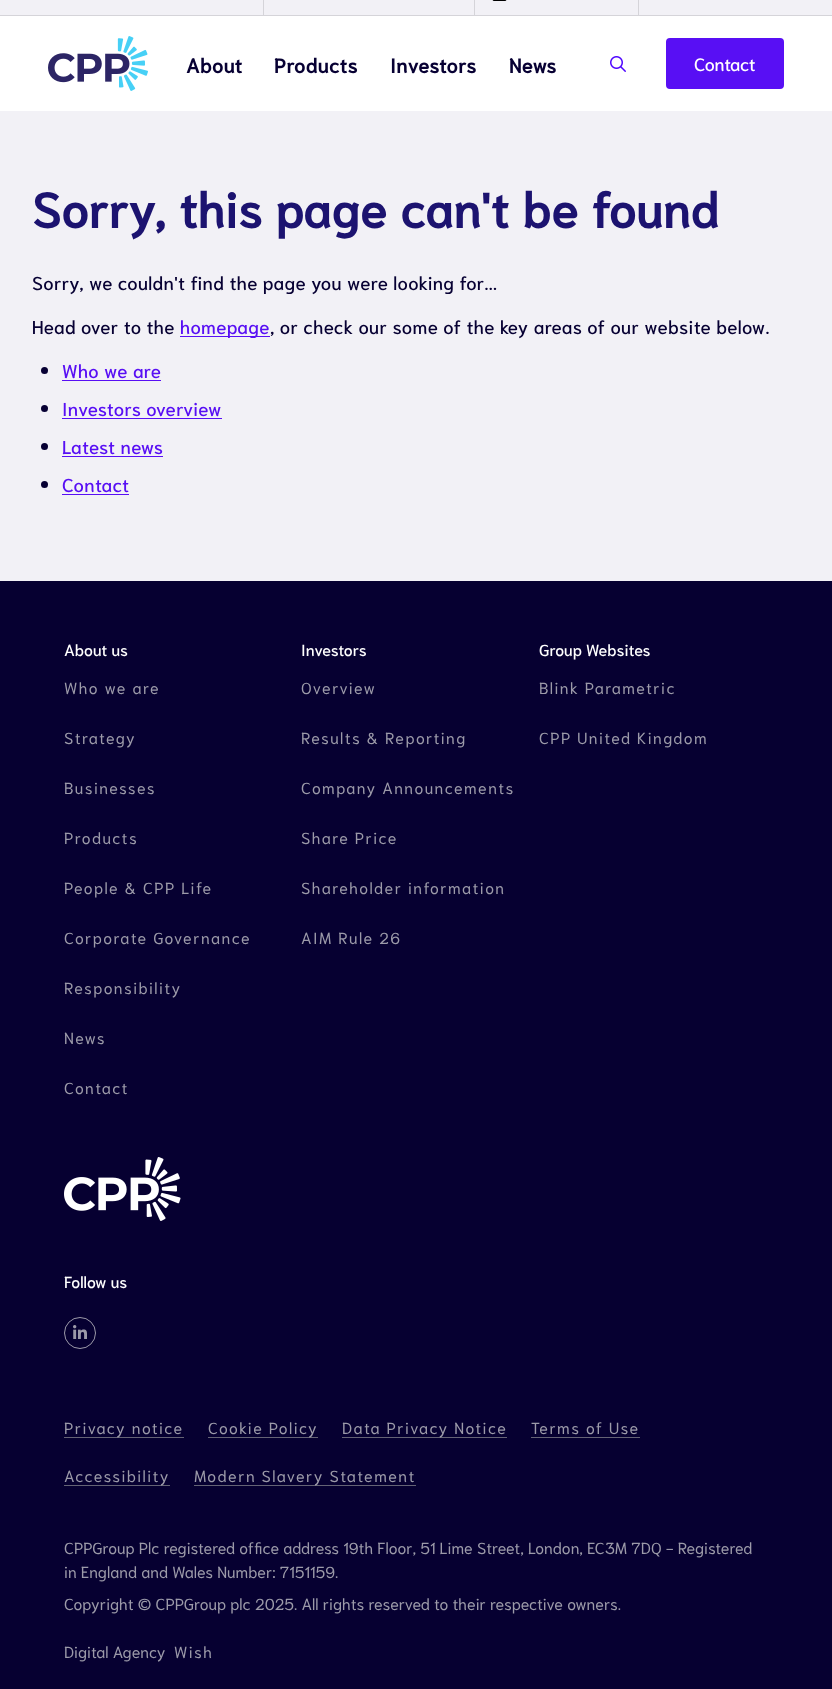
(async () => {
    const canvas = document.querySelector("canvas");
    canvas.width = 832;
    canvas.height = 1689;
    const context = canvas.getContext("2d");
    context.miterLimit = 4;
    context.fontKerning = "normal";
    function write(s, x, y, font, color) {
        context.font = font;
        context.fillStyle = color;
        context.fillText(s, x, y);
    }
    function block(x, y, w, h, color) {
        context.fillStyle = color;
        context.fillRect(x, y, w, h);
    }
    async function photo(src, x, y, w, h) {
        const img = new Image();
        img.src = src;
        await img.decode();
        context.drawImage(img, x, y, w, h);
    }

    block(0, 0, 832, 1689, "rgb(255, 255, 255)");
    block(0, 0, 832, 15, "rgb(242, 241, 246)");
    block(0, 15, 832, 1, "rgb(213, 212, 217)");
    block(263, 0, 1, 15, "rgb(213, 212, 217)");
    block(474, 0, 1, 15, "rgb(213, 212, 217)");
    context.beginPath();
    context.roundRect(492.5, -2.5, 14, 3, 1.5);
    context.strokeStyle = "rgb(0, 0, 0)";
    context.stroke();
    block(638, 0, 1, 15, "rgb(213, 212, 217)");
    await photo("media/1.png", 48, 36, 100, 55);
    context.letterSpacing = "0.5px";
    write("About", 186, 73, "bold 20px Niramit", "rgb(7, 0, 51)");
    write("Products", 274, 73, "bold 20px Niramit", "rgb(7, 0, 51)");
    write("Investors", 390, 73, "bold 20px Niramit", "rgb(7, 0, 51)");
    write("News", 509, 73, "bold 20px Niramit", "rgb(7, 0, 51)");
    await photo("media/2.png", 610, 56, 16, 16);
    context.fillStyle = "rgb(88, 15, 244)";
    context.beginPath();
    context.roundRect(667, 39, 116, 49, 3);
    context.fill();
    context.strokeStyle = "rgb(88, 15, 244)";
    context.lineWidth = 2;
    context.stroke();
    context.letterSpacing = "-0.25px";
    write("Contact", 694, 71, "500 18px Niramit", "rgb(255, 255, 255)");
    block(0, 111, 832, 470, "rgb(242, 241, 246)");
    context.letterSpacing = "0.5px";
    write("Sorry, this page can't be found", 32, 228, "bold 48.75px Niramit", "rgb(28, 19, 112)");
    context.letterSpacing = "0.3px";
    write("Sorry, we couldn't find the page you were looking for...", 32, 290, "500 18.65px Niramit", "rgb(7, 0, 51)");
    write("Head over to the", 32, 334, "500 18.65px Niramit", "rgb(7, 0, 51)");
    block(180, 336, 90, 1, "rgb(88, 15, 244)");
    write("homepage", 180, 334, "500 18.65px Niramit", "rgb(88, 15, 244)");
    write(", or check our some of the key areas of our website below.", 270, 334, "500 18.65px Niramit", "rgb(7, 0, 51)");
    context.beginPath();
    context.arc(44.5, 370.5, 3.5, 0, Math.PI * 2);
    context.fill();
    write("Who we are", 62, 378, "500 18.65px Niramit", "rgb(88, 15, 244)");
    block(62, 380, 99, 1, "rgb(88, 15, 244)");
    context.fillStyle = "rgb(7, 0, 51)";
    context.beginPath();
    context.arc(44.5, 408.5, 3.5, 0, Math.PI * 2);
    context.fill();
    write("Investors overview", 62, 416, "500 18.65px Niramit", "rgb(88, 15, 244)");
    block(62, 418, 160, 1, "rgb(88, 15, 244)");
    context.fillStyle = "rgb(7, 0, 51)";
    context.beginPath();
    context.arc(44.5, 446.5, 3.5, 0, Math.PI * 2);
    context.fill();
    write("Latest news", 62, 454, "500 18.65px Niramit", "rgb(88, 15, 244)");
    block(62, 456, 101, 1, "rgb(88, 15, 244)");
    context.fillStyle = "rgb(7, 0, 51)";
    context.beginPath();
    context.arc(44.5, 484.5, 3.5, 0, Math.PI * 2);
    context.fill();
    write("Contact", 62, 492, "500 18.65px Niramit", "rgb(88, 15, 244)");
    block(62, 494, 67, 1, "rgb(88, 15, 244)");
    block(0, 581, 832, 1108, "rgb(6, 0, 49)");
    context.letterSpacing = "0px";
    write("About us", 64, 656, "500 16px Niramit", "rgb(255, 255, 255)");
    context.letterSpacing = "1.4px";
    write("Who we are", 64, 694, "16px Niramit", "rgb(156, 154, 169)");
    write("Strategy", 64, 744, "16px Niramit", "rgb(156, 154, 169)");
    write("Businesses", 64, 794, "16px Niramit", "rgb(156, 154, 169)");
    write("Products", 64, 844, "16px Niramit", "rgb(156, 154, 169)");
    write("People & CPP Life", 64, 894, "16px Niramit", "rgb(156, 154, 169)");
    write("Corporate Governance", 64, 944, "16px Niramit", "rgb(156, 154, 169)");
    write("Responsibility", 64, 994, "16px Niramit", "rgb(156, 154, 169)");
    write("News", 64, 1044, "16px Niramit", "rgb(156, 154, 169)");
    write("Contact", 64, 1094, "16px Niramit", "rgb(156, 154, 169)");
    context.letterSpacing = "0px";
    write("Investors", 301, 656, "500 16px Niramit", "rgb(255, 255, 255)");
    context.letterSpacing = "1.4px";
    write("Overview", 301, 694, "16px Niramit", "rgb(156, 154, 169)");
    write("Results & Reporting", 301, 744, "16px Niramit", "rgb(156, 154, 169)");
    write("Company Announcements", 301, 794, "16px Niramit", "rgb(156, 154, 169)");
    write("Share Price", 301, 844, "16px Niramit", "rgb(156, 154, 169)");
    write("Shareholder information", 301, 894, "16px Niramit", "rgb(156, 154, 169)");
    write("AIM Rule 26", 301, 944, "16px Niramit", "rgb(156, 154, 169)");
    context.letterSpacing = "0px";
    write("Group Websites", 539, 656, "500 16px Niramit", "rgb(255, 255, 255)");
    context.letterSpacing = "1.4px";
    write("Blink Parametric", 539, 694, "16px Niramit", "rgb(156, 154, 169)");
    write("CPP United Kingdom", 539, 744, "16px Niramit", "rgb(156, 154, 169)");
    await photo("media/3.png", 64, 1157, 117, 64);
    context.letterSpacing = "0px";
    write("Follow us", 64, 1288, "500 16px Niramit", "rgb(255, 255, 255)");
    context.beginPath();
    context.arc(80, 1333, 15.5, 0, Math.PI * 2);
    context.strokeStyle = "rgb(156, 154, 169)";
    context.lineWidth = 1;
    context.stroke();
    await photo("media/4.png", 73, 1325, 14, 14);
    block(64, 1437, 120, 1, "rgb(100, 99, 117)");
    context.letterSpacing = "1.4px";
    write("Privacy notice", 64, 1434, "16px Niramit", "rgb(156, 154, 169)");
    block(208, 1437, 110, 1, "rgb(100, 99, 117)");
    write("Cookie Policy", 208, 1434, "16px Niramit", "rgb(156, 154, 169)");
    block(342, 1437, 165, 1, "rgb(100, 99, 117)");
    write("Data Privacy Notice", 342, 1434, "16px Niramit", "rgb(156, 154, 169)");
    write("Terms of Use", 531, 1434, "16px Niramit", "rgb(156, 154, 169)");
    block(531, 1437, 109, 1, "rgb(100, 99, 117)");
    block(64, 1485, 106, 1, "rgb(100, 99, 117)");
    write("Accessibility", 64, 1482, "16px Niramit", "rgb(156, 154, 169)");
    block(194, 1485, 222, 1, "rgb(100, 99, 117)");
    write("Modern Slavery Statement", 194, 1482, "16px Niramit", "rgb(156, 154, 169)");
    context.letterSpacing = "0px";
    write("CPPGroup Plc registered office address 19th Floor, 51 Lime Street, London, EC3M 7DQ - Registered", 64, 1554, "16px Niramit", "rgb(156, 154, 169)");
    write("in England and Wales Number: 7151159.", 64, 1578, "16px Niramit", "rgb(156, 154, 169)");
    write("Copyright © CPPGroup plc 2025. All rights reserved to their respective owners.", 64, 1610, "16px Niramit", "rgb(156, 154, 169)");
    write("Digital Agency", 64, 1658, "16px Niramit", "rgb(156, 154, 169)");
    context.letterSpacing = "1.4px";
    write("Wish", 174, 1658, "16px Niramit", "rgb(156, 154, 169)");
})();
